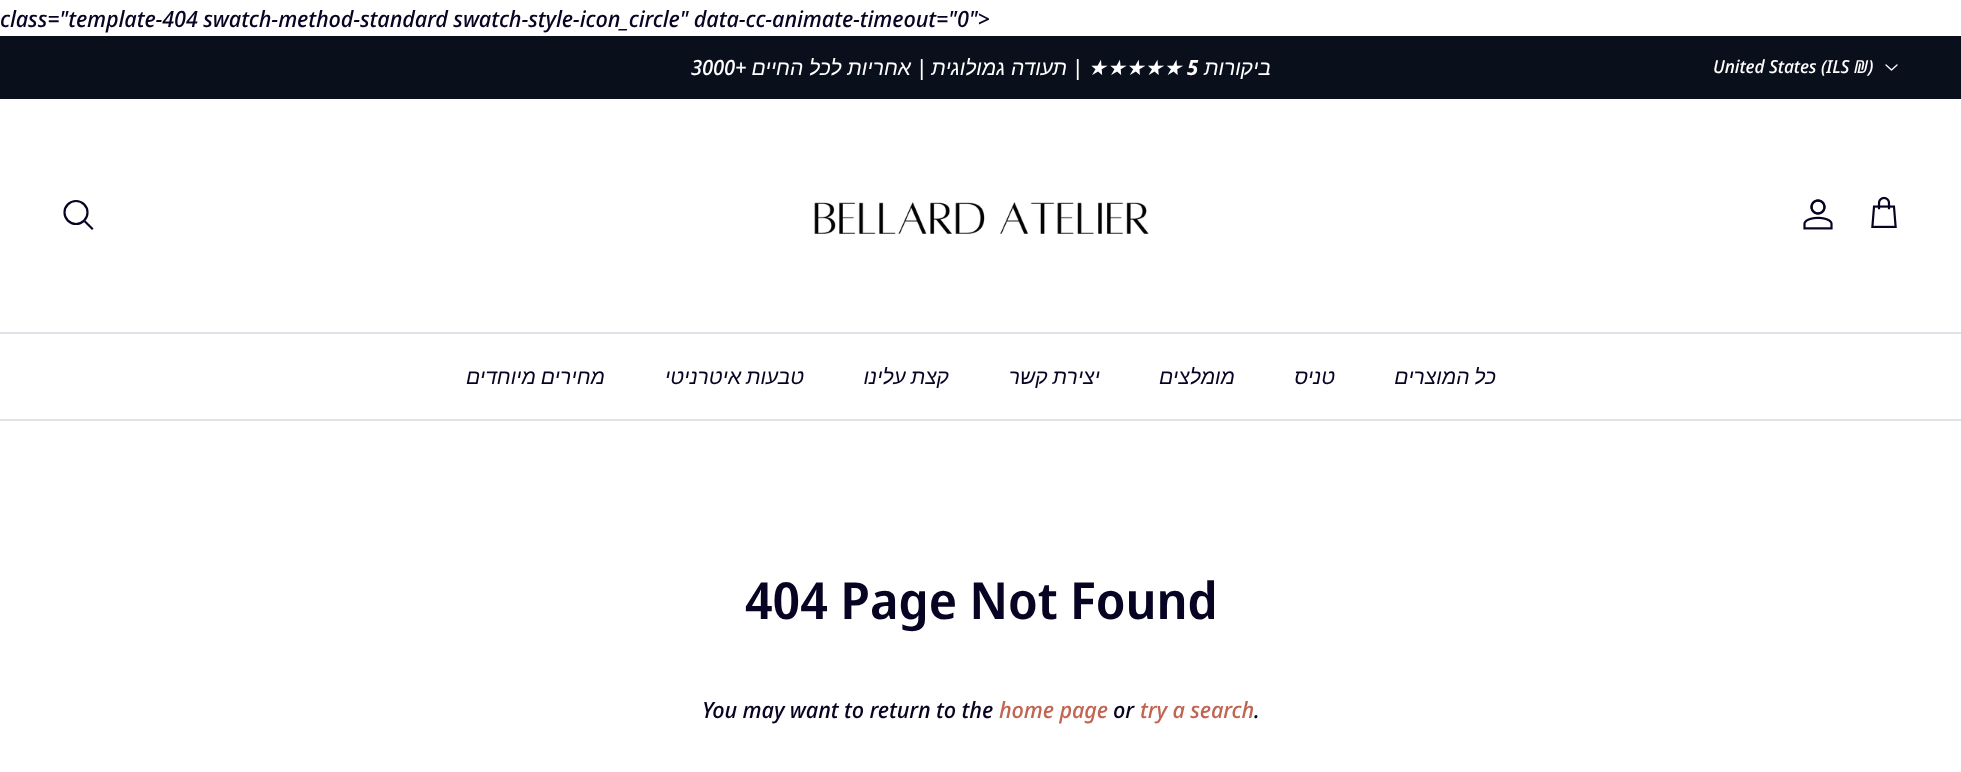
(async () => {
    const canvas = document.querySelector("canvas");
    canvas.width = 1961;
    canvas.height = 772;
    const context = canvas.getContext("2d");
    context.miterLimit = 4;
    context.fontKerning = "normal";
    function write(s, x, y, font, color) {
        context.font = font;
        context.fillStyle = color;
        context.fillText(s, x, y);
    }
    function block(x, y, w, h, color) {
        context.fillStyle = color;
        context.fillRect(x, y, w, h);
    }
    async function photo(src, x, y, w, h) {
        const img = new Image();
        img.src = src;
        await img.decode();
        context.drawImage(img, x, y, w, h);
    }

    block(0, 0, 1961, 772, "rgb(255, 255, 255)");
    write("class=\"template-404 swatch-method-standard swatch-style-icon_circle\" data-cc-animate-timeout=\"0\">", 0, 27, "italic 500 22.5px Noto Sans Display", "rgb(7, 3, 34)");
    block(0, 36, 1961, 63, "rgb(10, 15, 28)");
    write("3000+", 691, 75, "italic 500 21px Noto Sans Display", "rgb(255, 255, 255)");
    context.direction = "rtl";
    write("אחריות לכל החיים", 911, 75, "italic 21px Liberation Sans", "rgb(255, 255, 255)");
    write("|", 927, 75, "italic 500 21px Noto Sans Display", "rgb(255, 255, 255)");
    write("תעודה גמולוגית", 1067, 75, "italic 21px Liberation Sans", "rgb(255, 255, 255)");
    write("|", 1083, 75, "italic 500 21px Noto Sans Display", "rgb(255, 255, 255)");
    write("★★★★★", 1182, 75, "italic 21px DejaVu Sans", "rgb(255, 255, 255)");
    context.direction = "ltr";
    write("5", 1187, 75, "italic bold 21px Noto Sans Display", "rgb(255, 255, 255)");
    context.direction = "rtl";
    write("ביקורות", 1271, 75, "italic 21px Liberation Sans", "rgb(255, 255, 255)");
    context.direction = "ltr";
    write("United States (ILS ₪)", 1713, 73, "italic 500 18px Noto Sans Display", "rgb(255, 255, 255)");
    context.beginPath();
    context.moveTo(1886, 65);
    context.lineTo(1891.5, 70);
    context.lineTo(1897, 65);
    context.strokeStyle = "rgb(255, 255, 255)";
    context.lineWidth = 1.3;
    context.lineCap = "round";
    context.lineJoin = "round";
    context.stroke();
    block(0, 332, 1961, 2, "rgb(223, 227, 232)");
    context.beginPath();
    context.arc(76, 212.5, 11.5, 0, Math.PI * 2);
    context.strokeStyle = "rgb(7, 3, 34)";
    context.lineWidth = 2.2;
    context.stroke();
    context.beginPath();
    context.moveTo(85.5, 222);
    context.lineTo(92, 228.5);
    context.lineCap = "square";
    context.lineJoin = "miter";
    context.stroke();
    await photo("media/1.png", 814, 202, 335, 32);
    await photo("media/2.png", 1803, 199, 30, 31);
    await photo("media/3.png", 1871, 196, 26, 32);
    block(0, 419, 1961, 2, "rgb(223, 227, 232)");
    context.wordSpacing = "-1px";
    context.direction = "rtl";
    write("מחירים מיוחדים", 605, 384, "italic 21px Liberation Sans", "rgb(7, 3, 34)");
    write("טבעות איטרניטי", 804, 384, "italic 21px Liberation Sans", "rgb(7, 3, 34)");
    write("קצת עלינו", 949, 384, "italic 21px Liberation Sans", "rgb(7, 3, 34)");
    write("יצירת קשר", 1100, 384, "italic 21px Liberation Sans", "rgb(7, 3, 34)");
    context.wordSpacing = "0px";
    write("מומלצים", 1235, 384, "italic 21px Liberation Sans", "rgb(7, 3, 34)");
    write("טניס", 1335, 384, "italic 21px Liberation Sans", "rgb(7, 3, 34)");
    context.wordSpacing = "-1px";
    write("כל המוצרים", 1496, 384, "italic 21px Liberation Sans", "rgb(7, 3, 34)");
    context.wordSpacing = "0px";
    context.direction = "ltr";
    write("404 Page Not Found", 745, 619, "600 51px Noto Sans Display", "rgb(7, 3, 34)");
    write("You may want to return to the", 702, 718, "italic 500 22.5px Noto Sans Display", "rgb(7, 3, 34)");
    write("home page", 999, 718, "italic 500 22.5px Noto Sans Display", "rgb(193, 100, 82)");
    write("or", 1113, 718, "italic 500 22.5px Noto Sans Display", "rgb(7, 3, 34)");
    write("try a search", 1140, 718, "italic 500 22.5px Noto Sans Display", "rgb(193, 100, 82)");
    write(".", 1254, 718, "italic 500 22.5px Noto Sans Display", "rgb(7, 3, 34)");
})();
